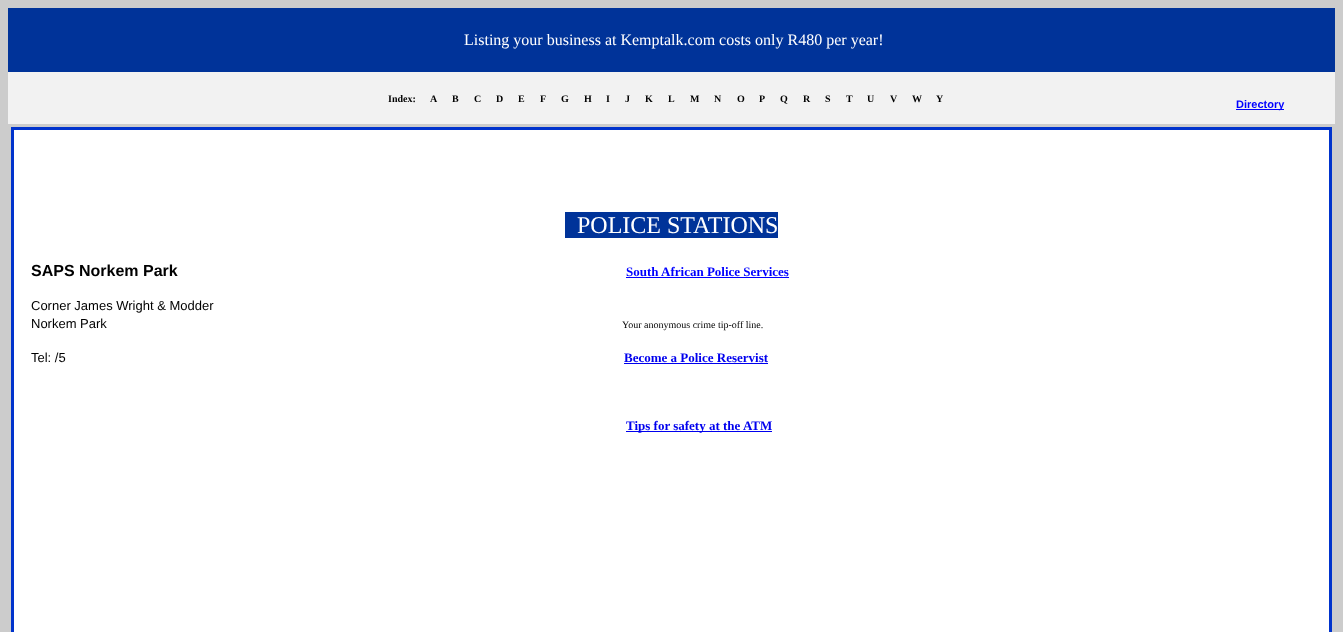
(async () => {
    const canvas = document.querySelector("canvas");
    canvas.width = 1343;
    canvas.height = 632;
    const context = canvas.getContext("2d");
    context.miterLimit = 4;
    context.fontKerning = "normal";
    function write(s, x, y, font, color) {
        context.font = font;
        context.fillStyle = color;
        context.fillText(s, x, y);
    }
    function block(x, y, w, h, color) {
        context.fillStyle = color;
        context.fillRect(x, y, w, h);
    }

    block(0, 0, 1343, 632, "rgb(204, 204, 204)");
    block(8, 8, 1327, 64, "rgb(0, 51, 153)");
    write("Listing your business at Kemptalk.com costs only R480 per year!", 464, 45, "16px Liberation Serif", "rgb(255, 255, 255)");
    block(8, 72, 1327, 52, "rgb(242, 242, 242)");
    write("Index:", 388, 102, "bold 10px Liberation Serif", "rgb(0, 0, 0)");
    write("A", 430, 102, "bold 10px Liberation Serif", "rgb(0, 0, 0)");
    write("B", 452, 102, "bold 10px Liberation Serif", "rgb(0, 0, 0)");
    write("C", 474, 102, "bold 10px Liberation Serif", "rgb(0, 0, 0)");
    write("D", 496, 102, "bold 10px Liberation Serif", "rgb(0, 0, 0)");
    write("E", 518, 102, "bold 10px Liberation Serif", "rgb(0, 0, 0)");
    write("F", 540, 102, "bold 10px Liberation Serif", "rgb(0, 0, 0)");
    write("G", 561, 102, "bold 10px Liberation Serif", "rgb(0, 0, 0)");
    write("H", 584, 102, "bold 10px Liberation Serif", "rgb(0, 0, 0)");
    write("I", 606, 102, "bold 10px Liberation Serif", "rgb(0, 0, 0)");
    write("J", 625, 102, "bold 10px Liberation Serif", "rgb(0, 0, 0)");
    write("K", 645, 102, "bold 10px Liberation Serif", "rgb(0, 0, 0)");
    write("L", 668, 102, "bold 10px Liberation Serif", "rgb(0, 0, 0)");
    write("M", 690, 102, "bold 10px Liberation Serif", "rgb(0, 0, 0)");
    write("N", 714, 102, "bold 10px Liberation Serif", "rgb(0, 0, 0)");
    write("O", 737, 102, "bold 10px Liberation Serif", "rgb(0, 0, 0)");
    write("P", 759, 102, "bold 10px Liberation Serif", "rgb(0, 0, 0)");
    write("Q", 780, 102, "bold 10px Liberation Serif", "rgb(0, 0, 0)");
    write("R", 803, 102, "bold 10px Liberation Serif", "rgb(0, 0, 0)");
    write("S", 825, 102, "bold 10px Liberation Serif", "rgb(0, 0, 0)");
    write("T", 846, 102, "bold 10px Liberation Serif", "rgb(0, 0, 0)");
    write("U", 867, 102, "bold 10px Liberation Serif", "rgb(0, 0, 0)");
    write("V", 890, 102, "bold 10px Liberation Serif", "rgb(0, 0, 0)");
    write("W", 912, 102, "bold 10px Liberation Serif", "rgb(0, 0, 0)");
    write("Y", 936, 102, "bold 10px Liberation Serif", "rgb(0, 0, 0)");
    block(1236, 109, 48, 1, "rgb(0, 0, 255)");
    write("Directory", 1236, 108, "bold 11px Liberation Sans", "rgb(0, 0, 255)");
    block(14, 130, 1315, 502, "rgb(255, 255, 255)");
    block(11, 127, 1321, 3, "rgb(0, 51, 204)");
    block(1329, 127, 3, 505, "rgb(0, 51, 204)");
    block(11, 127, 3, 505, "rgb(0, 51, 204)");
    block(565, 212, 213, 26, "rgb(0, 51, 153)");
    write("POLICE STATIONS", 577, 233, "24px Liberation Serif", "rgb(255, 255, 255)");
    write("SAPS Norkem Park", 31, 276, "bold 16px Liberation Sans", "rgb(0, 0, 0)");
    write("Corner James Wright & Modder", 31, 310, "13px Liberation Sans", "rgb(0, 0, 0)");
    write("Norkem Park", 31, 328, "13px Liberation Sans", "rgb(0, 0, 0)");
    write("Tel: /5", 31, 362, "13px Liberation Sans", "rgb(0, 0, 0)");
    write("South African Police Services", 626, 276, "bold 13px Liberation Serif", "rgb(0, 0, 255)");
    block(626, 277, 163, 1, "rgb(0, 0, 255)");
    write("Your anonymous crime tip-off line.", 622, 328, "10px Liberation Serif", "rgb(0, 0, 0)");
    write("Become a Police Reservist", 624, 362, "bold 13px Liberation Serif", "rgb(0, 0, 238)");
    block(624, 363, 144, 1, "rgb(0, 0, 238)");
    block(626, 431, 146, 1, "rgb(0, 0, 238)");
    write("Tips for safety at the ATM", 626, 430, "bold 13px Liberation Serif", "rgb(0, 0, 238)");
})();
